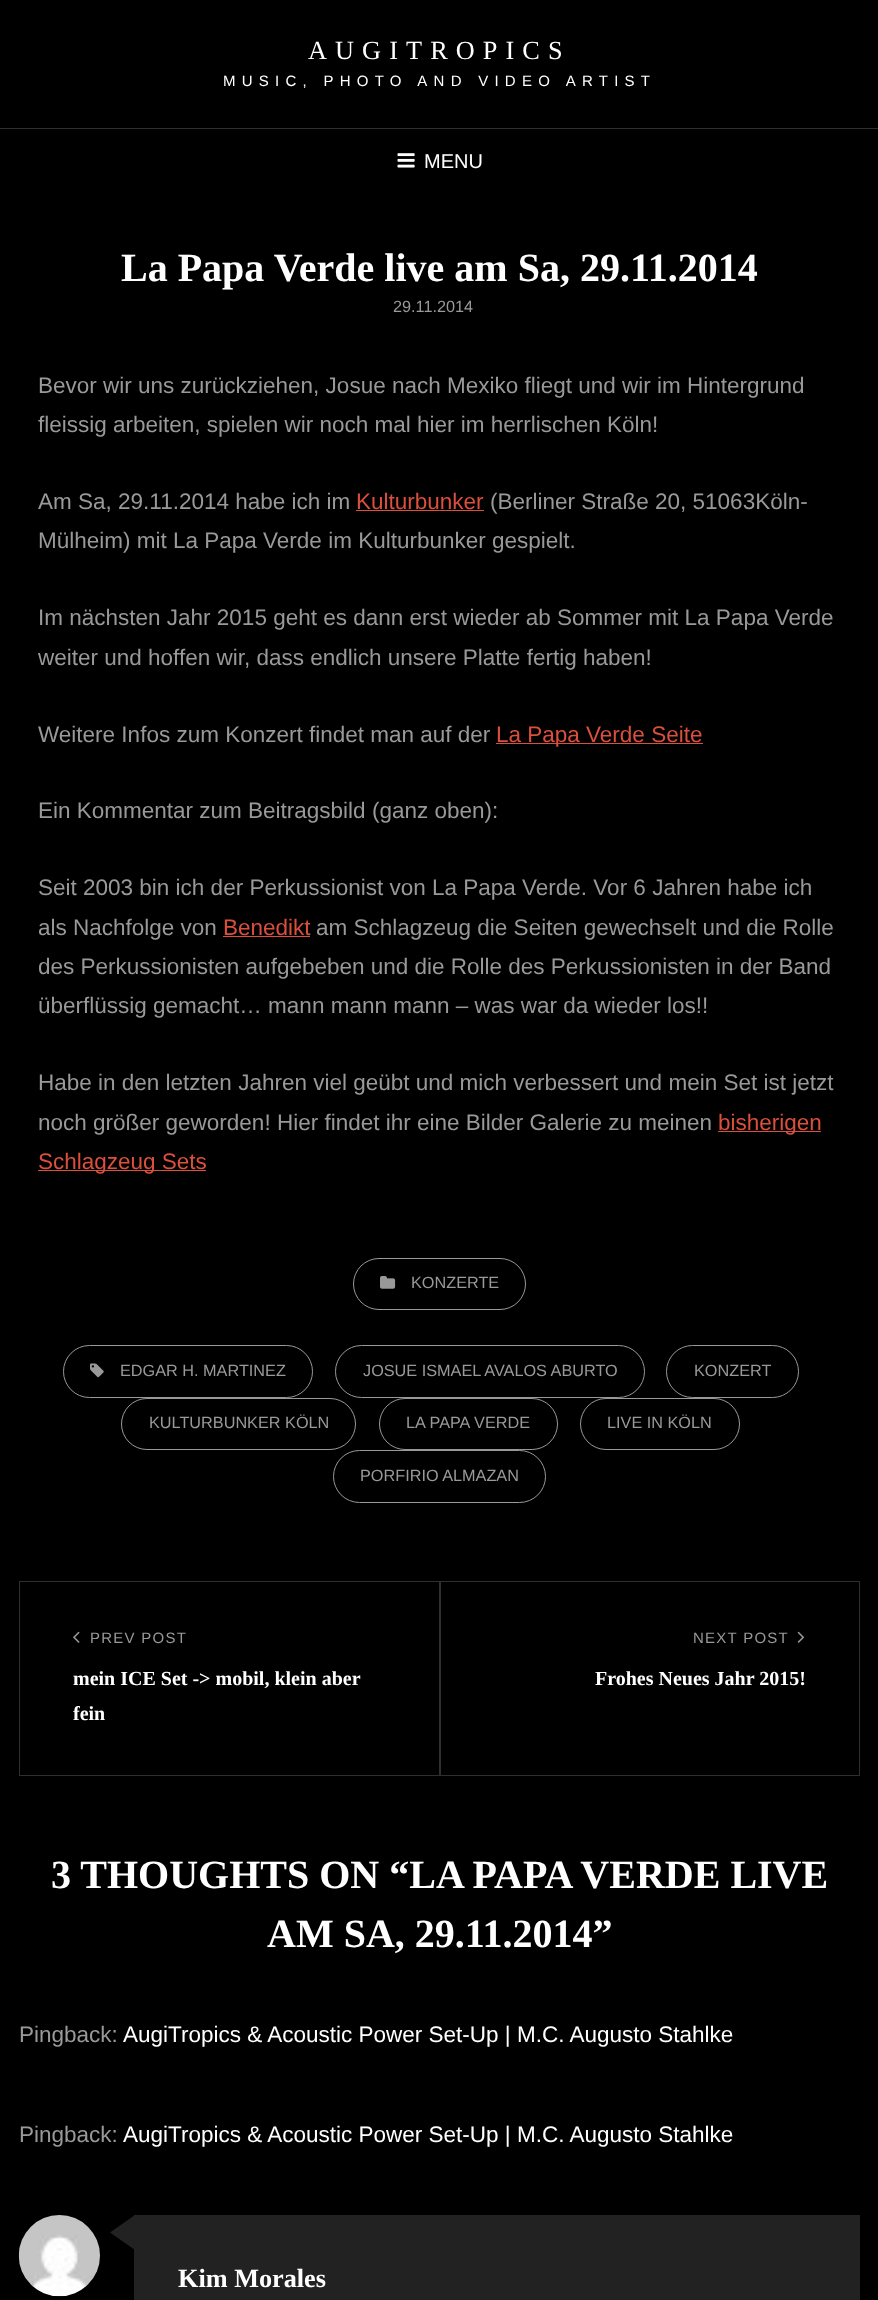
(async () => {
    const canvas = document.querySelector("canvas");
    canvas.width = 878;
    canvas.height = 2300;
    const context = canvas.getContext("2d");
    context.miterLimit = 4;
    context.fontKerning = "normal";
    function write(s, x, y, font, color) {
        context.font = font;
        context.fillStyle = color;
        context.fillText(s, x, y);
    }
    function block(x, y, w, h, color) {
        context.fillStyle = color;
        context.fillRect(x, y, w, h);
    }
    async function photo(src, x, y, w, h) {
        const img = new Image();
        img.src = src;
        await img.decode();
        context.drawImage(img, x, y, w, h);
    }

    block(0, 0, 878, 2300, "rgb(0, 0, 0)");
    context.letterSpacing = "8.1px";
    write("AUGITROPICS", 308, 59, "26.25px Liberation Serif", "rgb(255, 255, 255)");
    context.letterSpacing = "6.25px";
    write("MUSIC, PHOTO AND VIDEO ARTIST", 223, 86, "15px Liberation Sans", "rgb(255, 255, 255)");
    block(0, 128, 878, 1, "rgb(47, 47, 47)");
    await photo("media/1.png", 397, 153, 18, 15);
    context.letterSpacing = "0px";
    write("MENU", 424, 168, "20px Liberation Sans", "rgb(255, 255, 255)");
    write("La Papa Verde live am Sa, 29.11.2014", 121, 281, "bold 40px Liberation Serif", "rgb(255, 255, 255)");
    write("29.11.2014", 393, 312, "16.25px Liberation Sans", "rgb(153, 153, 153)");
    write("Bevor wir uns zurückziehen, Josue nach Mexiko fliegt und wir im Hintergrund", 38, 393, "22.5px Liberation Sans", "rgb(153, 153, 153)");
    write("fleissig arbeiten, spielen wir noch mal hier im herrlischen Köln!", 38, 432, "22.5px Liberation Sans", "rgb(153, 153, 153)");
    write("Am Sa, 29.11.2014 habe ich im", 38, 509, "22.5px Liberation Sans", "rgb(153, 153, 153)");
    write("Kulturbunker", 356, 509, "22.5px Liberation Sans", "rgb(219, 79, 61)");
    block(356, 510, 128, 1, "rgb(219, 79, 61)");
    write("(Berliner Straße 20, 51063Köln-", 490, 509, "22.5px Liberation Sans", "rgb(153, 153, 153)");
    write("Mülheim) mit La Papa Verde im Kulturbunker gespielt.", 38, 548, "22.5px Liberation Sans", "rgb(153, 153, 153)");
    write("Im nächsten Jahr 2015 geht es dann erst wieder ab Sommer mit La Papa Verde", 38, 625, "22.5px Liberation Sans", "rgb(153, 153, 153)");
    write("weiter und hoffen wir, dass endlich unsere Platte fertig haben!", 38, 665, "22.5px Liberation Sans", "rgb(153, 153, 153)");
    write("Weitere Infos zum Konzert findet man auf der", 38, 742, "22.5px Liberation Sans", "rgb(153, 153, 153)");
    block(496, 743, 207, 1, "rgb(219, 79, 61)");
    write("La Papa Verde Seite", 496, 742, "22.5px Liberation Sans", "rgb(219, 79, 61)");
    write("Ein Kommentar zum Beitragsbild (ganz oben):", 38, 818, "22.5px Liberation Sans", "rgb(153, 153, 153)");
    write("Seit 2003 bin ich der Perkussionist von La Papa Verde. Vor 6 Jahren habe ich", 38, 895, "22.5px Liberation Sans", "rgb(153, 153, 153)");
    write("als Nachfolge von", 38, 935, "22.5px Liberation Sans", "rgb(153, 153, 153)");
    write("Benedikt", 223, 935, "22.5px Liberation Sans", "rgb(219, 79, 61)");
    block(223, 936, 87, 1, "rgb(219, 79, 61)");
    write("am Schlagzeug die Seiten gewechselt und die Rolle", 316, 935, "22.5px Liberation Sans", "rgb(153, 153, 153)");
    write("des Perkussionisten aufgebeben und die Rolle des Perkussionisten in der Band", 38, 974, "22.5px Liberation Sans", "rgb(153, 153, 153)");
    write("überflüssig gemacht… mann mann mann – was war da wieder los!!", 38, 1013, "22.5px Liberation Sans", "rgb(153, 153, 153)");
    write("Habe in den letzten Jahren viel geübt und mich verbessert und mein Set ist jetzt", 38, 1090, "22.5px Liberation Sans", "rgb(153, 153, 153)");
    write("noch größer geworden! Hier findet ihr eine Bilder Galerie zu meinen", 38, 1130, "22.5px Liberation Sans", "rgb(153, 153, 153)");
    block(718, 1131, 103, 1, "rgb(219, 79, 61)");
    write("bisherigen", 718, 1130, "22.5px Liberation Sans", "rgb(219, 79, 61)");
    block(38, 1170, 168, 1, "rgb(219, 79, 61)");
    write("Schlagzeug Sets", 38, 1169, "22.5px Liberation Sans", "rgb(219, 79, 61)");
    context.beginPath();
    context.roundRect(353.5, 1258.5, 172, 51, 25.5);
    context.strokeStyle = "rgb(153, 153, 153)";
    context.stroke();
    await photo("media/2.png", 380, 1276, 16, 13);
    write("KONZERTE", 411, 1288, "16.25px Liberation Sans", "rgb(153, 153, 153)");
    context.beginPath();
    context.roundRect(63.5, 1345.5, 249, 52, 26);
    context.stroke();
    await photo("media/3.png", 90, 1363, 14, 15);
    write("EDGAR H. MARTINEZ", 120, 1376, "16.25px Liberation Sans", "rgb(153, 153, 153)");
    context.beginPath();
    context.roundRect(335.5, 1345.5, 309, 52, 26);
    context.stroke();
    write("JOSUE ISMAEL AVALOS ABURTO", 363, 1376, "16.25px Liberation Sans", "rgb(153, 153, 153)");
    context.beginPath();
    context.roundRect(666.5, 1345.5, 132, 52, 26);
    context.stroke();
    write("KONZERT", 694, 1376, "16.25px Liberation Sans", "rgb(153, 153, 153)");
    context.beginPath();
    context.roundRect(121.5, 1398.5, 234, 51, 25.5);
    context.stroke();
    write("KULTURBUNKER KÖLN", 149, 1428, "16.25px Liberation Sans", "rgb(153, 153, 153)");
    context.beginPath();
    context.roundRect(379.5, 1398.5, 178, 51, 25.5);
    context.stroke();
    write("LA PAPA VERDE", 406, 1428, "16.25px Liberation Sans", "rgb(153, 153, 153)");
    context.beginPath();
    context.roundRect(580.5, 1398.5, 159, 51, 25.5);
    context.stroke();
    write("LIVE IN KÖLN", 607, 1428, "16.25px Liberation Sans", "rgb(153, 153, 153)");
    context.beginPath();
    context.roundRect(333.5, 1450.5, 212, 52, 26);
    context.stroke();
    write("PORFIRIO ALMAZAN", 360, 1481, "16.25px Liberation Sans", "rgb(153, 153, 153)");
    context.strokeStyle = "rgb(47, 47, 47)";
    context.strokeRect(19.5, 1581.5, 420, 194);
    await photo("media/4.png", 73, 1631, 7, 12);
    context.letterSpacing = "1.25px";
    write("PREV POST", 90, 1643, "15px Liberation Sans", "rgb(153, 153, 153)");
    context.letterSpacing = "0px";
    write("mein ICE Set -> mobil, klein aber", 73, 1685, "bold 20px Liberation Serif", "rgb(255, 255, 255)");
    write("fein", 73, 1720, "bold 20px Liberation Serif", "rgb(255, 255, 255)");
    context.strokeRect(440.5, 1581.5, 419, 194);
    context.letterSpacing = "1.25px";
    write("NEXT POST", 693, 1643, "15px Liberation Sans", "rgb(153, 153, 153)");
    await photo("media/5.png", 797, 1631, 8, 12);
    context.letterSpacing = "0px";
    write("Frohes Neues Jahr 2015!", 595, 1685, "bold 20px Liberation Serif", "rgb(255, 255, 255)");
    write("3 THOUGHTS ON “LA PAPA VERDE LIVE", 51, 1888, "bold 40px Liberation Serif", "rgb(255, 255, 255)");
    write("AM SA, 29.11.2014”", 267, 1947, "bold 40px Liberation Serif", "rgb(255, 255, 255)");
    write("Pingback:", 19, 2042, "22.5px Liberation Sans", "rgb(153, 153, 153)");
    write("AugiTropics & Acoustic Power Set-Up | M.C. Augusto Stahlke", 123, 2042, "22.5px Liberation Sans", "rgb(255, 255, 255)");
    write("Pingback:", 19, 2142, "22.5px Liberation Sans", "rgb(153, 153, 153)");
    write("AugiTropics & Acoustic Power Set-Up | M.C. Augusto Stahlke", 123, 2142, "22.5px Liberation Sans", "rgb(255, 255, 255)");
    await photo("media/6.png", 18, 2215, 82, 82);
    context.fillStyle = "rgb(34, 34, 34)";
    context.beginPath();
    context.moveTo(135, 2215);
    context.lineTo(135, 2250);
    context.lineTo(110, 2232.5);
    context.closePath();
    context.fill();
    block(134, 2215, 726, 85, "rgb(34, 34, 34)");
    write("Kim Morales", 178, 2287, "bold 26.25px Liberation Serif", "rgb(255, 255, 255)");
})();
